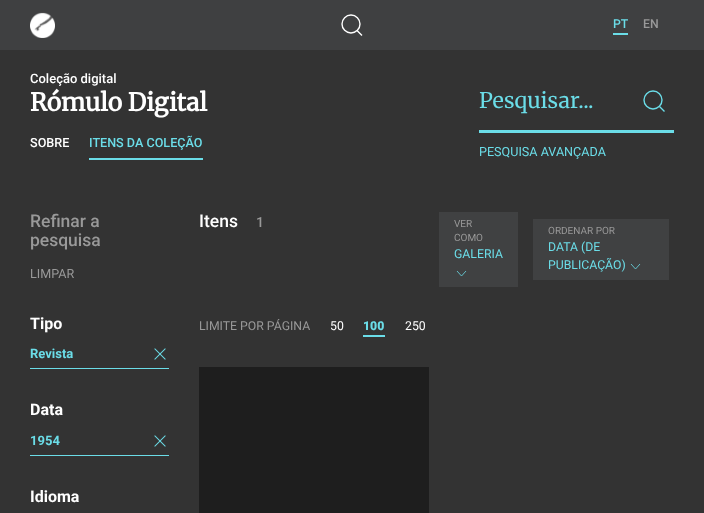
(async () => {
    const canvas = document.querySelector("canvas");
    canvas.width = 704;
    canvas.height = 513;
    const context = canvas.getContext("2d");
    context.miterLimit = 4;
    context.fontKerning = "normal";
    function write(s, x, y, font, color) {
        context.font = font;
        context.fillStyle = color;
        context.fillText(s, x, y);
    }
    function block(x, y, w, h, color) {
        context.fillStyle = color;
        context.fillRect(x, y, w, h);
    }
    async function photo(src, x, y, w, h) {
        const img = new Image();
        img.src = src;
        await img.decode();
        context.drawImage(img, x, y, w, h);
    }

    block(0, 0, 704, 513, "rgb(51, 51, 51)");
    block(0, 0, 704, 50, "rgb(63, 64, 65)");
    await photo("media/1.png", 30, 12, 25, 26);
    context.beginPath();
    context.arc(351, 24, 9, 0, Math.PI * 2);
    context.strokeStyle = "rgb(255, 255, 255)";
    context.lineWidth = 1.4;
    context.stroke();
    context.beginPath();
    context.moveTo(357, 30.5);
    context.lineTo(362, 35.5);
    context.closePath();
    context.stroke();
    block(613, 33, 15, 2, "rgb(107, 221, 232)");
    write("PT", 613, 28, "500 12.25px Roboto", "rgb(107, 221, 232)");
    write("EN", 643, 28, "500 12.25px Roboto", "rgb(153, 153, 153)");
    write("Coleção digital", 30, 83, "500 13px Roboto", "rgb(255, 255, 255)");
    write("Rómulo Digital", 30, 111, "bold 24.5px Merriweather", "rgb(255, 255, 255)");
    write("SOBRE", 30, 147, "500 12.6px Roboto", "rgb(255, 255, 255)");
    block(89, 158, 114, 2, "rgb(107, 221, 232)");
    write("ITENS DA COLEÇÃO", 89, 147, "500 12.6px Roboto", "rgb(107, 221, 232)");
    block(479, 130, 195, 3, "rgb(107, 221, 232)");
    write("Pesquisar...", 479, 108, "300 21.5px Merriweather", "rgb(107, 221, 232)");
    context.beginPath();
    context.arc(653, 100, 9, 0, Math.PI * 2);
    context.strokeStyle = "rgb(107, 221, 232)";
    context.stroke();
    context.beginPath();
    context.moveTo(659.5, 106.5);
    context.lineTo(664.5, 111.5);
    context.closePath();
    context.stroke();
    write("PESQUISA AVANÇADA", 479, 156, "12.6px Roboto", "rgb(107, 221, 232)");
    write("Refinar a", 30, 227, "500 17.5px Roboto", "rgb(153, 153, 153)");
    write("pesquisa", 30, 246, "500 17.5px Roboto", "rgb(153, 153, 153)");
    write("LIMPAR", 30, 278, "12.6px Roboto", "rgb(153, 153, 153)");
    write("Tipo", 30, 329, "bold 16px Roboto", "rgb(255, 255, 255)");
    block(30, 368, 139, 1, "rgb(107, 221, 232)");
    write("Revista", 30, 358, "bold 13px Roboto", "rgb(107, 221, 232)");
    await photo("media/2.png", 154, 348, 12, 12);
    write("Data", 30, 415, "bold 16px Roboto", "rgb(255, 255, 255)");
    block(30, 455, 139, 1, "rgb(107, 221, 232)");
    write("1954", 30, 445, "bold 13px Roboto", "rgb(107, 221, 232)");
    await photo("media/2.png", 154, 435, 12, 12);
    write("Idioma", 30, 502, "bold 16px Roboto", "rgb(255, 255, 255)");
    write("Itens", 199, 227, "500 17.5px Roboto", "rgb(255, 255, 255)");
    write("1", 256, 227, "500 14px Roboto", "rgb(153, 153, 153)");
    block(439, 212, 79, 75, "rgb(64, 65, 66)");
    write("VER", 454, 227, "10px Roboto", "rgb(153, 153, 153)");
    write("COMO", 454, 241, "10px Roboto", "rgb(153, 153, 153)");
    write("GALERIA", 454, 258, "12.25px Roboto", "rgb(107, 221, 232)");
    context.beginPath();
    context.moveTo(466, 271);
    context.lineTo(461.5, 276);
    context.lineTo(457, 271);
    context.lineWidth = 0.8;
    context.stroke();
    block(533, 219, 136, 61, "rgb(64, 65, 66)");
    write("ORDENAR POR", 548, 234, "10px Roboto", "rgb(153, 153, 153)");
    write("DATA (DE", 548, 251, "12.25px Roboto", "rgb(107, 221, 232)");
    write("PUBLICAÇÃO)", 548, 269, "12.25px Roboto", "rgb(107, 221, 232)");
    context.beginPath();
    context.moveTo(640, 264);
    context.lineTo(635.5, 269);
    context.lineTo(631, 264);
    context.stroke();
    write("LIMITE POR PÁGINA", 199, 330, "12.25px Roboto", "rgb(153, 153, 153)");
    write("50", 330, 330, "12.25px Roboto", "rgb(255, 255, 255)");
    block(363, 335, 22, 2, "rgb(107, 221, 232)");
    write("100", 363, 330, "900 12.25px Roboto", "rgb(107, 221, 232)");
    write("250", 405, 330, "12.25px Roboto", "rgb(255, 255, 255)");
    block(199, 367, 230, 146, "rgb(30, 30, 30)");
})();
